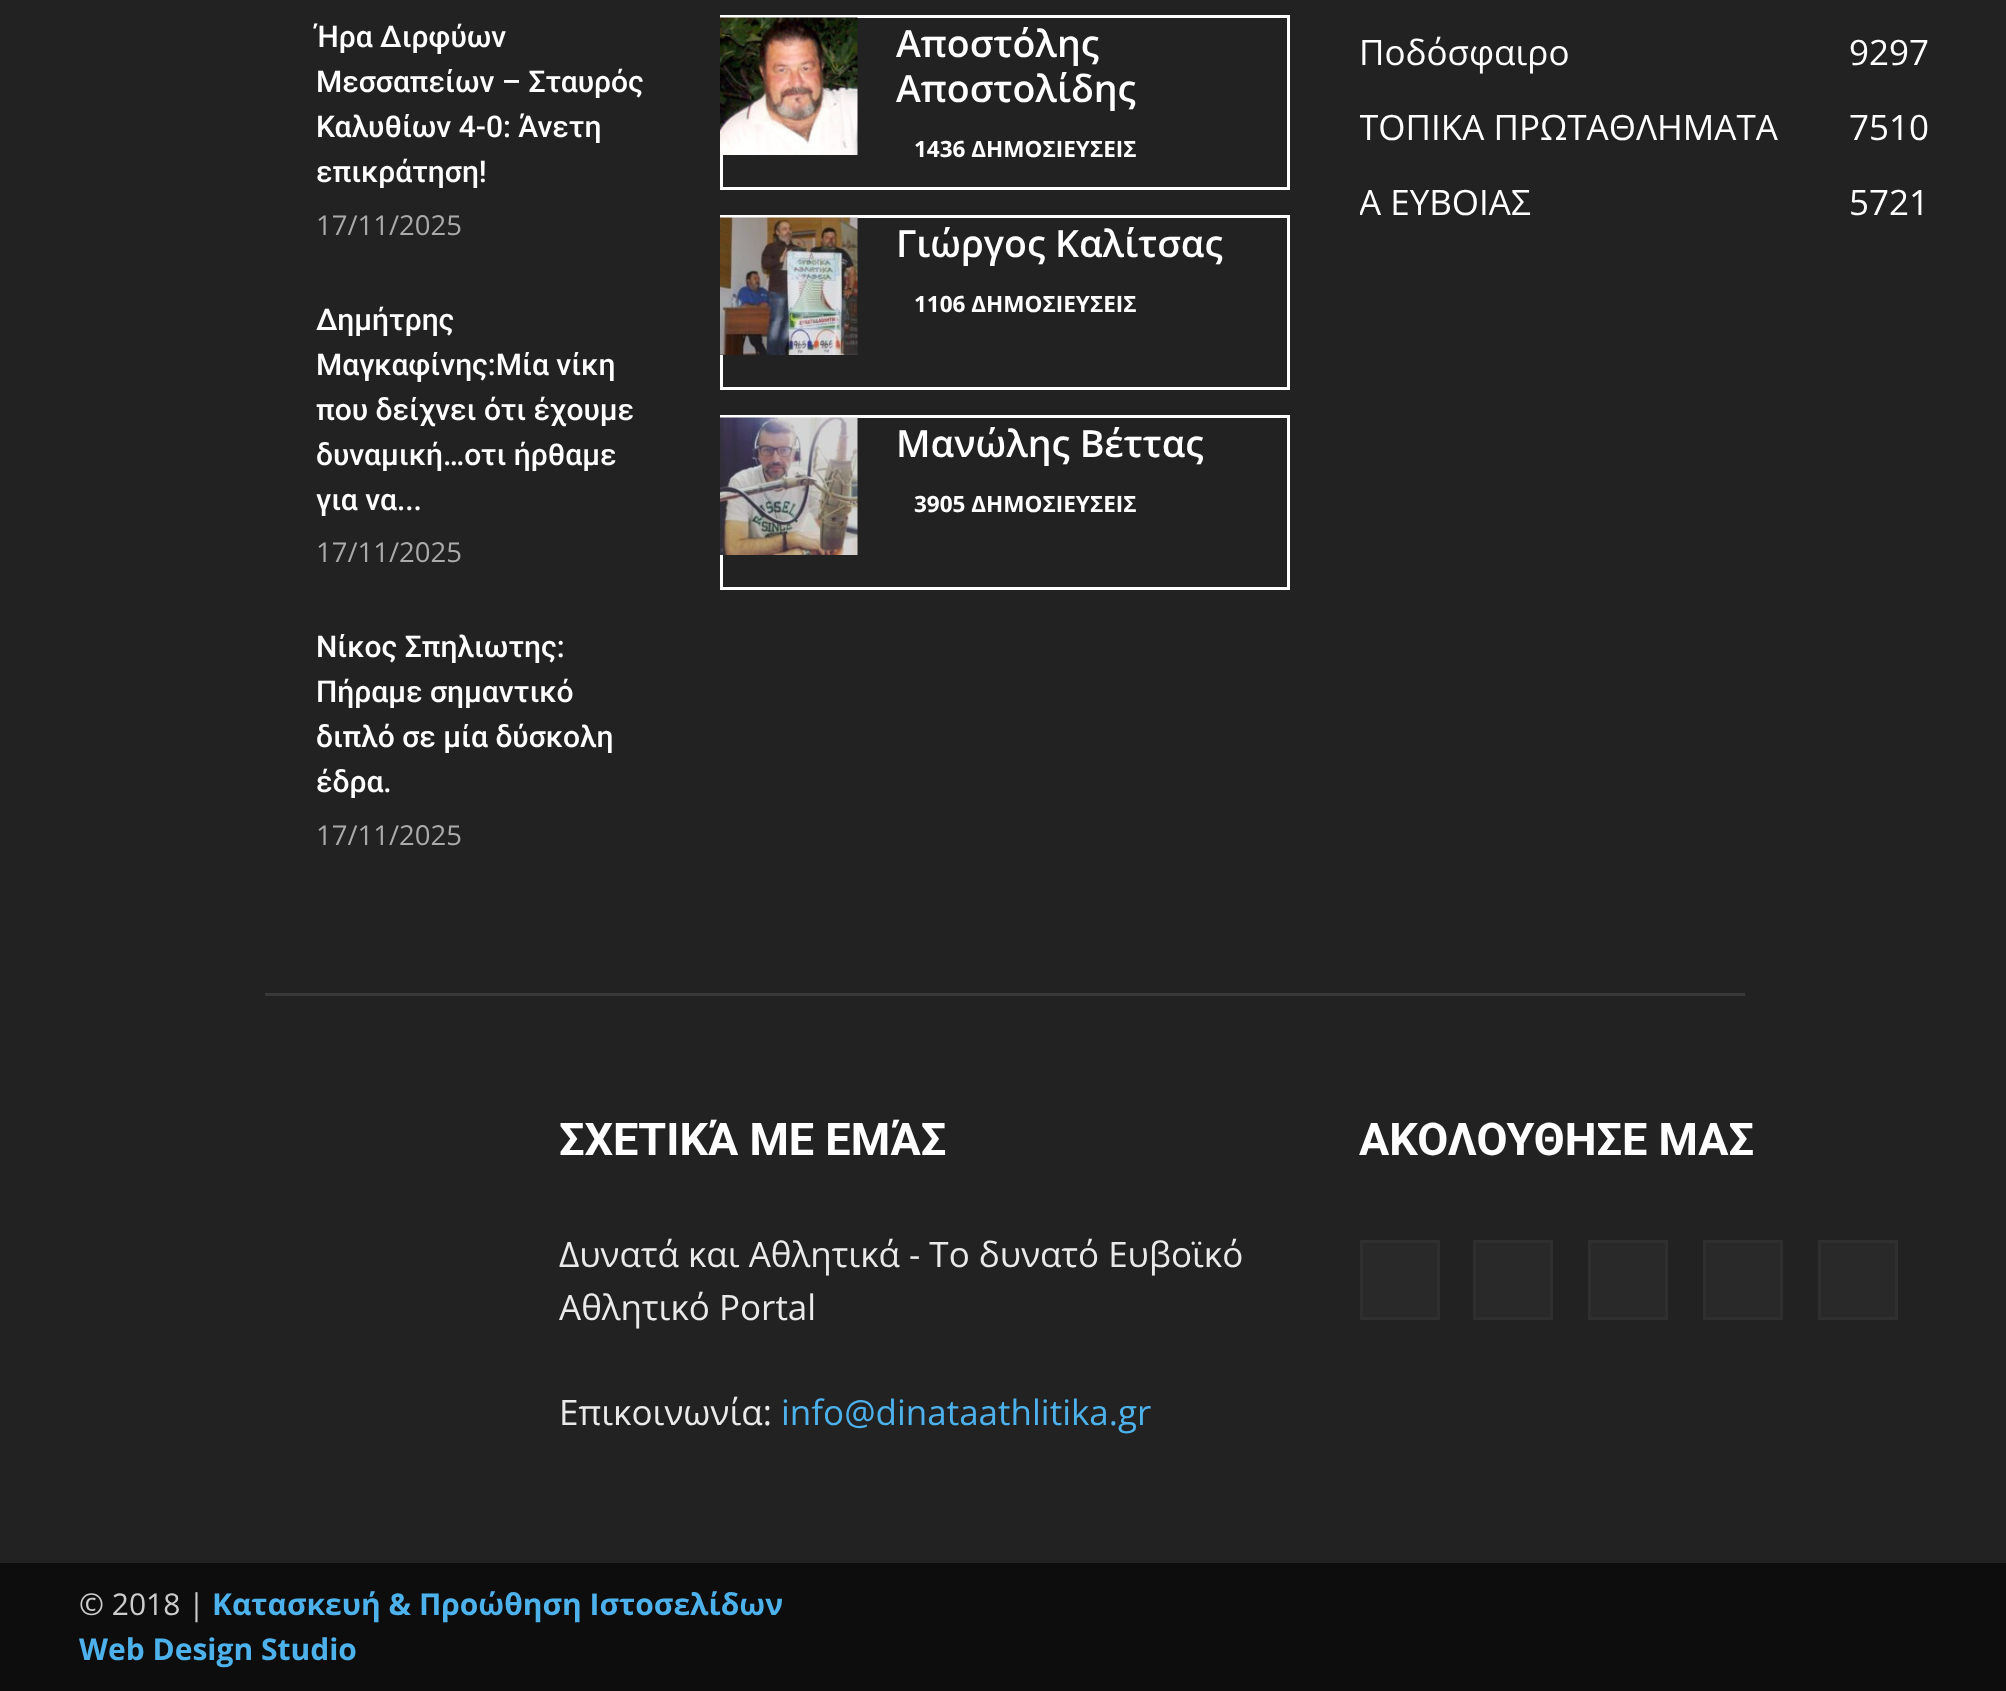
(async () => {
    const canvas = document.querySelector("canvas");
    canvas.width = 2006;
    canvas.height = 1691;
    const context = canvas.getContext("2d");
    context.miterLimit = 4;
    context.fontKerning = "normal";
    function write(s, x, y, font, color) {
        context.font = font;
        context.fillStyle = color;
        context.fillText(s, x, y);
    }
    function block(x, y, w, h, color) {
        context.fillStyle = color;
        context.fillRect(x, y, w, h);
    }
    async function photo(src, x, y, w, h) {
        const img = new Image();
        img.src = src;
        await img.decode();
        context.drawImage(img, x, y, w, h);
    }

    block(0, 0, 2006, 1691, "rgb(13, 13, 13)");
    block(0, 0, 2006, 1563, "rgb(34, 34, 34)");
    write("Ήρα Διρφύων", 316, 47, "500 30px Roboto", "rgb(255, 255, 255)");
    write("Μεσσαπείων – Σταυρός", 316, 92, "500 30px Roboto", "rgb(255, 255, 255)");
    write("Καλυθίων 4-0: Άνετη", 316, 137, "500 30px Roboto", "rgb(255, 255, 255)");
    write("επικράτηση!", 316, 182, "500 30px Roboto", "rgb(255, 255, 255)");
    write("17/11/2025", 316, 235, "27.5px Open Sans", "rgb(170, 170, 170)");
    write("Δημήτρης", 316, 330, "500 30px Roboto", "rgb(255, 255, 255)");
    write("Μαγκαφίνης:Μία νίκη", 316, 375, "500 30px Roboto", "rgb(255, 255, 255)");
    write("που δείχνει ότι έχουμε", 316, 420, "500 30px Roboto", "rgb(255, 255, 255)");
    write("δυναμική…οτι ήρθαμε", 316, 465, "500 30px Roboto", "rgb(255, 255, 255)");
    write("για να...", 316, 510, "500 30px Roboto", "rgb(255, 255, 255)");
    write("17/11/2025", 316, 562, "27.5px Open Sans", "rgb(170, 170, 170)");
    write("Νίκος Σπηλιωτης:", 316, 657, "500 30px Roboto", "rgb(255, 255, 255)");
    write("Πήραμε σημαντικό", 316, 702, "500 30px Roboto", "rgb(255, 255, 255)");
    write("διπλό σε μία δύσκολη", 316, 747, "500 30px Roboto", "rgb(255, 255, 255)");
    write("έδρα.", 316, 792, "500 30px Roboto", "rgb(255, 255, 255)");
    write("17/11/2025", 316, 845, "27.5px Open Sans", "rgb(170, 170, 170)");
    context.strokeStyle = "rgb(255, 255, 255)";
    context.lineWidth = 3;
    context.strokeRect(721.5, 16.5, 567, 172);
    await photo("media/1.png", 720, 17, 138, 138);
    write("Αποστόλης", 896, 57, "600 37.5px Open Sans", "rgb(255, 255, 255)");
    write("Αποστολίδης", 896, 102, "600 37.5px Open Sans", "rgb(255, 255, 255)");
    write("1436 ΔΗΜΟΣΙΕΥΣΕΙΣ", 914, 157, "bold 22.5px Open Sans", "rgb(255, 255, 255)");
    context.strokeRect(721.5, 216.5, 567, 172);
    await photo("media/2.png", 720, 217, 138, 138);
    write("Γιώργος Καλίτσας", 896, 257, "600 37.5px Open Sans", "rgb(255, 255, 255)");
    write("1106 ΔΗΜΟΣΙΕΥΣΕΙΣ", 914, 312, "bold 22.5px Open Sans", "rgb(255, 255, 255)");
    context.strokeRect(721.5, 416.5, 567, 172);
    await photo("media/3.png", 720, 417, 138, 138);
    write("Μανώλης Βέττας", 896, 457, "600 37.5px Open Sans", "rgb(255, 255, 255)");
    write("3905 ΔΗΜΟΣΙΕΥΣΕΙΣ", 914, 512, "bold 22.5px Open Sans", "rgb(255, 255, 255)");
    write("Ποδόσφαιρο", 1359, 65, "35px Open Sans", "rgb(255, 255, 255)");
    write("9297", 1849, 65, "35px Open Sans", "rgb(255, 255, 255)");
    context.save();
    context.beginPath();
    context.rect(1360, 0, 570, 240);
    context.clip();
    write("ΤΟΠΙΚΑ ΠΡΩΤΑΘΛΗΜΑΤΑ", 1359, 140, "35px Open Sans", "rgb(255, 255, 255)");
    context.restore();
    write("7510", 1849, 140, "35px Open Sans", "rgb(255, 255, 255)");
    context.save();
    context.beginPath();
    context.rect(1360, 0, 570, 240);
    context.clip();
    write("Α ΕΥΒΟΙΑΣ", 1359, 215, "35px Open Sans", "rgb(255, 255, 255)");
    context.restore();
    write("5721", 1849, 215, "35px Open Sans", "rgb(255, 255, 255)");
    block(265, 993, 1480, 3, "rgb(56, 56, 56)");
    write("ΣΧΕΤΙΚΆ ΜΕ ΕΜΆΣ", 559, 1155, "bold 45px Roboto", "rgb(255, 255, 255)");
    write("Δυνατά και Αθλητικά - Το δυνατό Ευβοϊκό", 559, 1267, "35px Open Sans", "rgb(234, 234, 234)");
    write("Αθλητικό Portal", 559, 1320, "35px Open Sans", "rgb(234, 234, 234)");
    write("Επικοινωνία:", 559, 1425, "35px Open Sans", "rgb(234, 234, 234)");
    write("info@dinataathlitika.gr", 781, 1425, "35px Open Sans", "rgb(77, 178, 236)");
    write("ΑΚΟΛΟΥΘΗΣΕ ΜΑΣ", 1359, 1155, "bold 45px Roboto", "rgb(255, 255, 255)");
    context.fillStyle = "rgb(41, 41, 41)";
    context.beginPath();
    context.rect(1361.5, 1241.5, 77, 77);
    context.fill();
    context.strokeStyle = "rgb(47, 47, 47)";
    context.stroke();
    context.beginPath();
    context.rect(1474.5, 1241.5, 77, 77);
    context.fill();
    context.stroke();
    context.beginPath();
    context.rect(1589.5, 1241.5, 77, 77);
    context.fill();
    context.stroke();
    context.beginPath();
    context.rect(1704.5, 1241.5, 77, 77);
    context.fill();
    context.stroke();
    context.beginPath();
    context.rect(1819.5, 1241.5, 77, 77);
    context.fill();
    context.stroke();
    write("© 2018 |", 79, 1615, "30px Open Sans", "rgb(204, 204, 204)");
    write("Κατασκευή & Προώθηση Ιστοσελίδων", 212, 1615, "bold 30px Open Sans", "rgb(77, 178, 236)");
    write("Web Design Studio", 79, 1660, "bold 30px Open Sans", "rgb(77, 178, 236)");
})();
